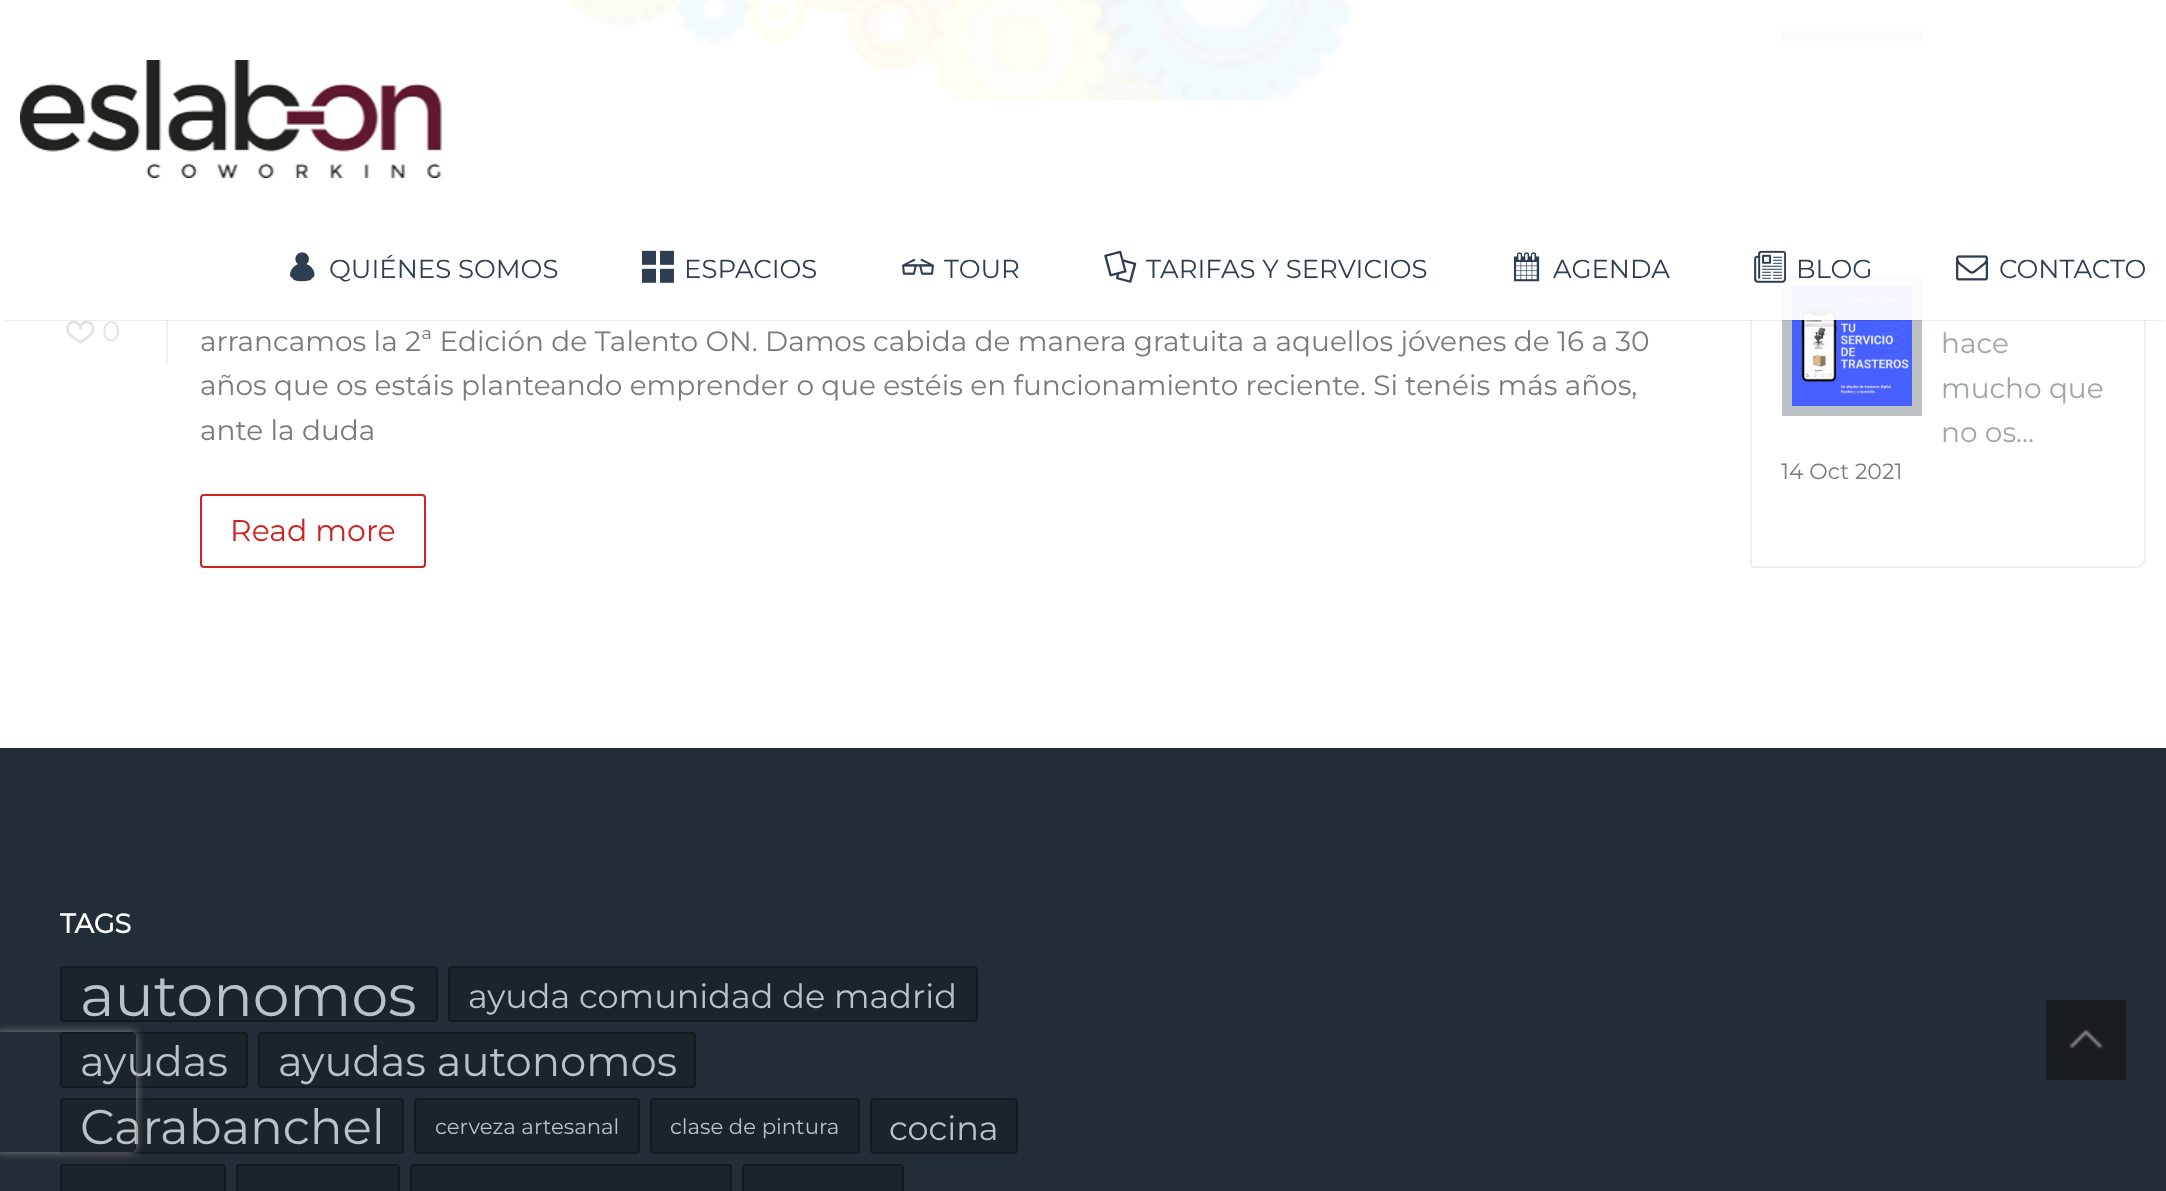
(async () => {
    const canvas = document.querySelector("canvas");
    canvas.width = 2166;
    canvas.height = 1191;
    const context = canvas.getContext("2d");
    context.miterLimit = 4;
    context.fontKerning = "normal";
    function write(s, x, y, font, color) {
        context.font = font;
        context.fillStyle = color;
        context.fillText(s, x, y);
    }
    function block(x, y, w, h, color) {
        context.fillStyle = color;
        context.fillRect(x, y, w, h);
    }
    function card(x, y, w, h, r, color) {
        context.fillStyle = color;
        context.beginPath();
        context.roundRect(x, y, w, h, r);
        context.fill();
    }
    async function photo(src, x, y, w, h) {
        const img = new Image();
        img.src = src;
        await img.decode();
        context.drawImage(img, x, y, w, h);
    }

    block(0, 0, 2166, 1191, "rgb(255, 255, 255)");
    await photo("media/9.png", 566, 0, 803, 100);
    block(166, 140, 2, 224, "rgb(236, 238, 240)");
    block(50, 288, 86, 2, "rgb(236, 238, 240)");
    await photo("media/10.png", 66, 320, 29, 24);
    context.beginPath();
    context.moveTo(1751, -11);
    context.lineTo(2142, -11);
    context.bezierCurveTo(2143.5, -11, 2145, -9.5, 2145, -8);
    context.lineTo(2145, 558);
    context.bezierCurveTo(2145, 563, 2141, 567, 2136, 567);
    context.lineTo(1754, 567);
    context.bezierCurveTo(1752.5, 567, 1751, 565.5, 1751, 564);
    context.closePath();
    context.strokeStyle = "rgb(236, 238, 240)";
    context.lineWidth = 2;
    context.stroke();
    card(1782, 26, 140, 20, 4, "rgb(188, 193, 197)");
    context.beginPath();
    context.moveTo(1787, 281);
    context.lineTo(1917, 281);
    context.lineTo(1917, 411);
    context.lineTo(1787, 411);
    context.closePath();
    context.strokeStyle = "rgb(188, 193, 197)";
    context.lineWidth = 10;
    context.stroke();
    await photo("media/11.png", 1792, 286, 120, 120);
    context.save();
    context.beginPath();
    context.rect(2, 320, 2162, 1);
    context.clip();
    context.fillStyle = "rgba(0, 0, 0, 0.2)";
    context.filter = "blur(1px)";
    context.beginPath();
    context.rect(2, 4, 2162, 316);
    context.fill();
    context.filter = "none";
    context.restore();
    block(50, 0, 2096, 320, "rgba(255, 255, 255, 0.95)");
    await photo("media/1.png", 20, 60, 422, 118);
    await photo("media/2.png", 290, 252, 25, 30);
    write("QUIÉNES SOMOS", 329, 278, "100 26px Montserrat", "rgb(45, 62, 82)");
    await photo("media/3.png", 642, 250, 32, 33);
    write("ESPACIOS", 684, 278, "100 26px Montserrat", "rgb(45, 62, 82)");
    await photo("media/4.png", 902, 258, 32, 17);
    write("TOUR", 944, 278, "100 26px Montserrat", "rgb(45, 62, 82)");
    await photo("media/5.png", 1104, 250, 33, 33);
    write("TARIFAS Y SERVICIOS", 1146, 278, "100 26px Montserrat", "rgb(45, 62, 82)");
    await photo("media/6.png", 1514, 252, 26, 30);
    write("AGENDA", 1553, 278, "100 26px Montserrat", "rgb(45, 62, 82)");
    await photo("media/7.png", 1754, 250, 32, 33);
    write("BLOG", 1796, 278, "100 26px Montserrat", "rgb(45, 62, 82)");
    await photo("media/8.png", 1956, 255, 32, 26);
    write("CONTACTO", 1999, 278, "100 26px Montserrat", "rgb(45, 62, 82)");
    write("0", 102, 341, "100 28px Montserrat", "rgb(226, 228, 230)");
    write("arrancamos la 2ª Edición de Talento ON. Damos cabida de manera gratuita a aquellos jóvenes de 16 a 30", 200, 351, "100 28px Montserrat", "rgb(122, 122, 122)");
    write("años que os estáis planteando emprender o que estéis en funcionamiento reciente. Si tenéis más años,", 200, 395, "100 28px Montserrat", "rgb(122, 122, 122)");
    write("ante la duda", 200, 440, "100 28px Montserrat", "rgb(122, 122, 122)");
    context.beginPath();
    context.roundRect(201, 495, 224, 72, 3);
    context.strokeStyle = "rgb(205, 35, 35)";
    context.lineWidth = 2;
    context.stroke();
    write("Read more", 230, 541, "100 30px Montserrat", "rgb(205, 35, 35)");
    write("hace", 1941, 353, "100 28px Montserrat", "rgb(160, 165, 170)");
    write("mucho que", 1941, 398, "100 28px Montserrat", "rgb(160, 165, 170)");
    write("no os…", 1941, 442, "100 28px Montserrat", "rgb(160, 165, 170)");
    write("14 Oct 2021", 1781, 479, "100 22px Montserrat", "rgb(122, 122, 122)");
    block(0, 748, 2166, 443, "rgb(35, 45, 55)");
    write("TAGS", 60, 933, "bold 27px Montserrat", "rgb(255, 255, 255)");
    context.fillStyle = "rgb(27, 35, 43)";
    context.beginPath();
    context.roundRect(61, 967, 376, 54, 3);
    context.fill();
    context.strokeStyle = "rgb(20, 26, 32)";
    context.stroke();
    write("autonomos", 80, 1016, "100 58.5px Montserrat", "rgb(188, 193, 197)");
    context.fillStyle = "rgb(27, 35, 43)";
    context.beginPath();
    context.roundRect(449, 967, 528, 54, 3);
    context.fill();
    context.stroke();
    write("ayuda comunidad de madrid", 468, 1008, "100 33.5px Montserrat", "rgb(188, 193, 197)");
    context.fillStyle = "rgb(27, 35, 43)";
    context.beginPath();
    context.roundRect(61, 1033, 186, 54, 3);
    context.fill();
    context.stroke();
    write("ayudas", 80, 1076, "100 41.75px Montserrat", "rgb(188, 193, 197)");
    context.fillStyle = "rgb(27, 35, 43)";
    context.beginPath();
    context.roundRect(259, 1033, 436, 54, 3);
    context.fill();
    context.stroke();
    write("ayudas autonomos", 278, 1076, "100 41.75px Montserrat", "rgb(188, 193, 197)");
    context.fillStyle = "rgb(27, 35, 43)";
    context.beginPath();
    context.roundRect(61, 1099, 342, 54, 3);
    context.fill();
    context.stroke();
    write("Carabanchel", 80, 1144, "100 48.5px Montserrat", "rgb(188, 193, 197)");
    context.fillStyle = "rgb(27, 35, 43)";
    context.beginPath();
    context.roundRect(415, 1099, 224, 54, 3);
    context.fill();
    context.stroke();
    write("cerveza artesanal", 435, 1134, "100 21.25px Montserrat", "rgb(188, 193, 197)");
    context.fillStyle = "rgb(27, 35, 43)";
    context.beginPath();
    context.roundRect(651, 1099, 208, 54, 3);
    context.fill();
    context.stroke();
    write("clase de pintura", 670, 1134, "100 21.25px Montserrat", "rgb(188, 193, 197)");
    context.fillStyle = "rgb(27, 35, 43)";
    context.beginPath();
    context.roundRect(871, 1099, 146, 54, 3);
    context.fill();
    context.stroke();
    write("cocina", 889, 1140, "100 33.5px Montserrat", "rgb(188, 193, 197)");
    context.fillStyle = "rgb(27, 35, 43)";
    context.beginPath();
    context.roundRect(61, 1165, 164, 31, 3);
    context.fill();
    context.stroke();
    context.beginPath();
    context.roundRect(237, 1165, 162, 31, 3);
    context.fill();
    context.stroke();
    context.beginPath();
    context.roundRect(411, 1165, 320, 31, 3);
    context.fill();
    context.stroke();
    context.beginPath();
    context.roundRect(743, 1165, 160, 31, 3);
    context.fill();
    context.stroke();
    block(2046, 1000, 80, 80, "rgb(26, 29, 31)");
    await photo("media/12.png", 2069, 1029, 34, 20);
    context.save();
    context.beginPath();
    context.moveTo(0, 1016);
    context.lineTo(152, 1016);
    context.lineTo(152, 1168);
    context.lineTo(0, 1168);
    context.closePath();
    context.moveTo(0, 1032);
    context.lineTo(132, 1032);
    context.bezierCurveTo(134, 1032, 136, 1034, 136, 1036);
    context.lineTo(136, 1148);
    context.bezierCurveTo(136, 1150, 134, 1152, 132, 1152);
    context.lineTo(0, 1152);
    context.bezierCurveTo(-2, 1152, -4, 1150, -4, 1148);
    context.lineTo(-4, 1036);
    context.bezierCurveTo(-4, 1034, -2, 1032, 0, 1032);
    context.closePath();
    context.clip("evenodd");
    context.fillStyle = "rgb(128, 128, 128)";
    context.filter = "blur(5px)";
    context.beginPath();
    context.roundRect(-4, 1032, 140, 120, 4);
    context.fill();
    context.filter = "none";
    context.restore();
})();
